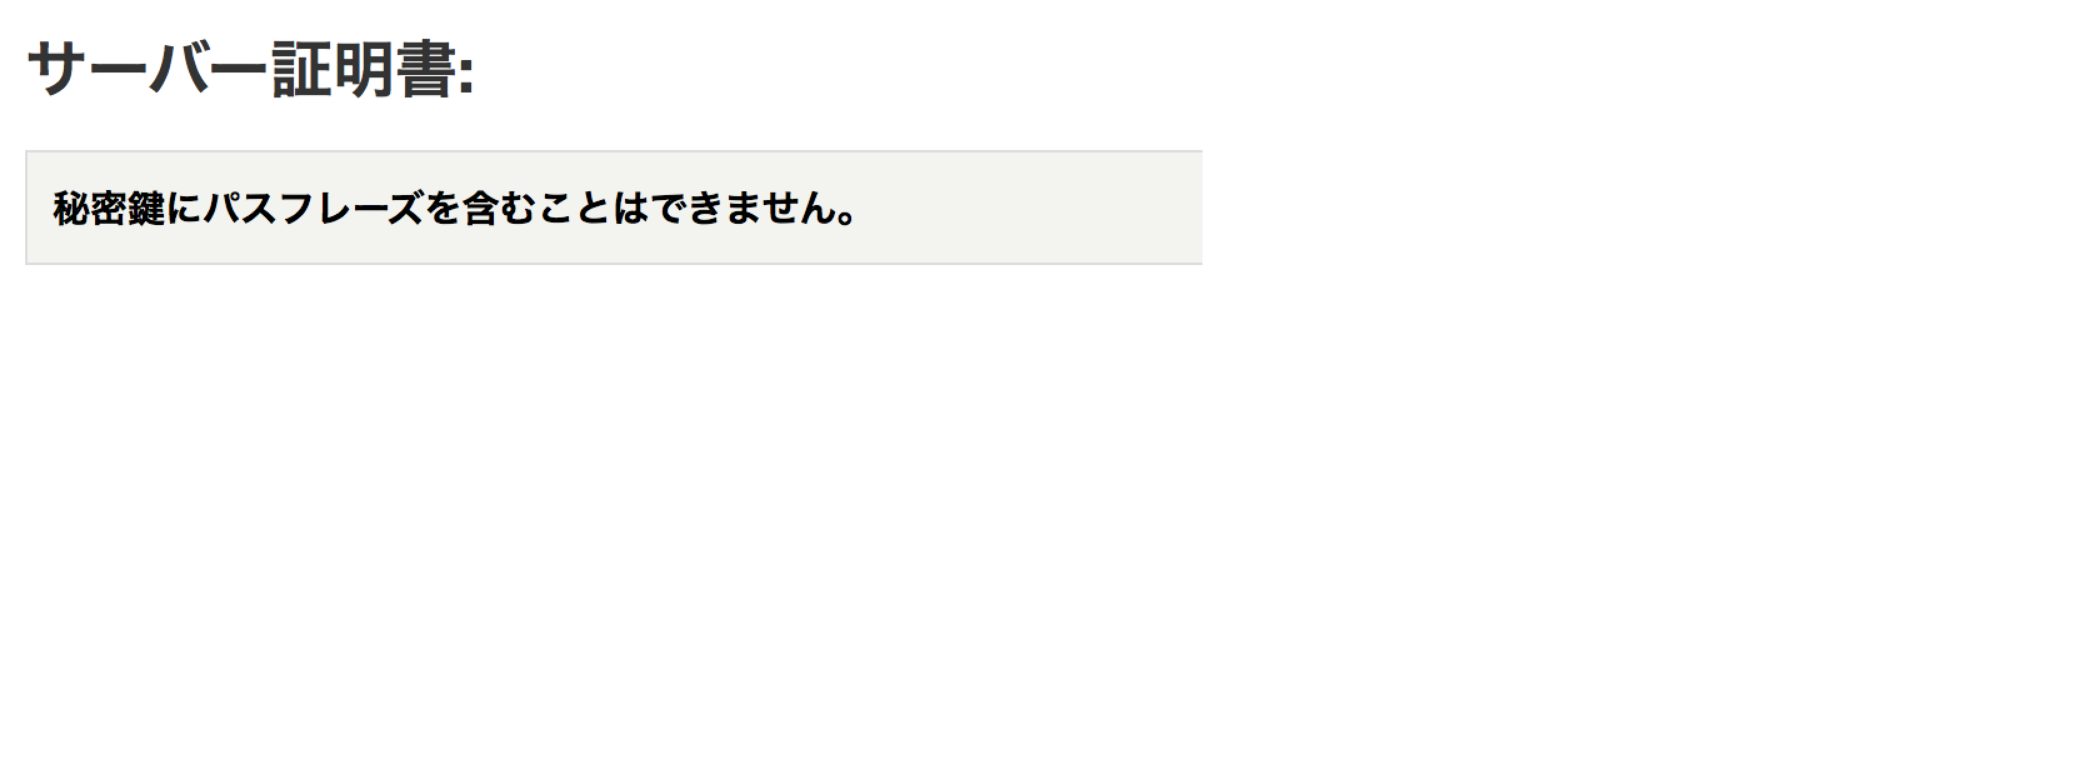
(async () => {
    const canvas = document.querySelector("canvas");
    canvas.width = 2095;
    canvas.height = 779;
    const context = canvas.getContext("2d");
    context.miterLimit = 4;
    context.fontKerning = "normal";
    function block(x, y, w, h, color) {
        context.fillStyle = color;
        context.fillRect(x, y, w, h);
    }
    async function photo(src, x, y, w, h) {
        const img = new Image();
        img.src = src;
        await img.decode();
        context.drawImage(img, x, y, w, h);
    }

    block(0, 0, 2095, 779, "rgb(255, 255, 255)");
    await photo("media/1.png", 25, 38, 1178, 228);
})();
